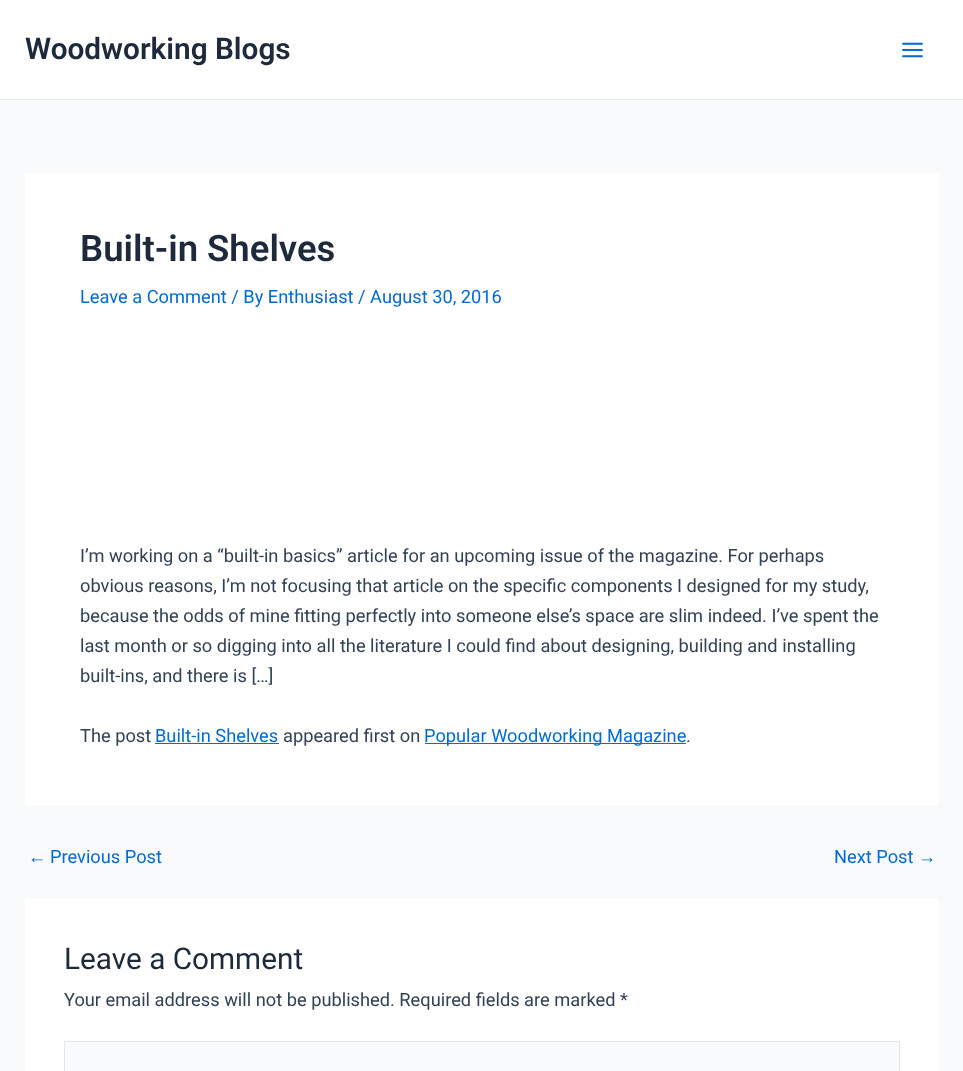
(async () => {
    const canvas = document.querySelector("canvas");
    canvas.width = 963;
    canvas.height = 1071;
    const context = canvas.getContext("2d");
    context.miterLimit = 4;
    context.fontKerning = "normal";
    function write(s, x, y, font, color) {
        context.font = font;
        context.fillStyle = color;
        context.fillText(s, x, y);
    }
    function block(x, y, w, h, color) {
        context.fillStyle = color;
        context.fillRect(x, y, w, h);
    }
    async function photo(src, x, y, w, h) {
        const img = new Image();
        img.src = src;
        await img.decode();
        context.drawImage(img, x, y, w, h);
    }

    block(0, 0, 963, 1071, "rgb(249, 250, 251)");
    block(0, 0, 963, 99, "rgb(255, 255, 255)");
    block(0, 99, 963, 1, "rgb(226, 232, 240)");
    write("Woodworking Blogs", 25, 59, "600 29.75px Roboto", "rgb(30, 41, 59)");
    await photo("media/1.png", 902, 42, 21, 16);
    block(25, 173, 914, 632, "rgb(255, 255, 255)");
    write("Built-in Shelves", 80, 261, "600 36.5px Roboto", "rgb(30, 41, 59)");
    write("Leave a Comment / By Enthusiast / August 30, 2016", 80, 303, "18.25px Roboto", "rgb(4, 107, 210)");
    write("I’m working on a “built-in basics” article for an upcoming issue of the magazine. For perhaps", 80, 562, "18.25px Roboto", "rgb(51, 65, 85)");
    write("obvious reasons, I’m not focusing that article on the specific components I designed for my study,", 80, 592, "18.25px Roboto", "rgb(51, 65, 85)");
    write("because the odds of mine fitting perfectly into someone else’s space are slim indeed. I’ve spent the", 80, 622, "18.25px Roboto", "rgb(51, 65, 85)");
    write("last month or so digging into all the literature I could find about designing, building and installing", 80, 652, "18.25px Roboto", "rgb(51, 65, 85)");
    write("built-ins, and there is […]", 80, 682, "18.25px Roboto", "rgb(51, 65, 85)");
    write("The post", 80, 742, "18.25px Roboto", "rgb(51, 65, 85)");
    write("Built-in Shelves", 155, 742, "18.25px Roboto", "rgb(4, 107, 210)");
    block(155, 743, 124, 1, "rgb(4, 107, 210)");
    write("appeared first on", 283, 742, "18.25px Roboto", "rgb(51, 65, 85)");
    block(425, 743, 261, 1, "rgb(4, 107, 210)");
    write("Popular Woodworking Magazine", 424, 742, "18.25px Roboto", "rgb(4, 107, 210)");
    write(".", 686, 742, "18.25px Roboto", "rgb(51, 65, 85)");
    write("←", 28, 863, "18.25px Liberation Sans", "rgb(4, 107, 210)");
    write("Previous Post", 50, 863, "18.25px Roboto", "rgb(4, 107, 210)");
    write("Next Post", 834, 863, "18.25px Roboto", "rgb(4, 107, 210)");
    write("→", 918, 863, "18.25px Liberation Sans", "rgb(4, 107, 210)");
    block(25, 899, 914, 172, "rgb(255, 255, 255)");
    write("Leave a Comment", 64, 969, "29.75px Roboto", "rgb(30, 41, 59)");
    write("Your email address will not be published. Required fields are marked *", 64, 1006, "18.25px Roboto", "rgb(51, 65, 85)");
    context.fillStyle = "rgb(249, 250, 251)";
    context.beginPath();
    context.rect(64.5, 1041.5, 835, 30);
    context.fill();
    context.strokeStyle = "rgb(226, 232, 240)";
    context.stroke();
})();
